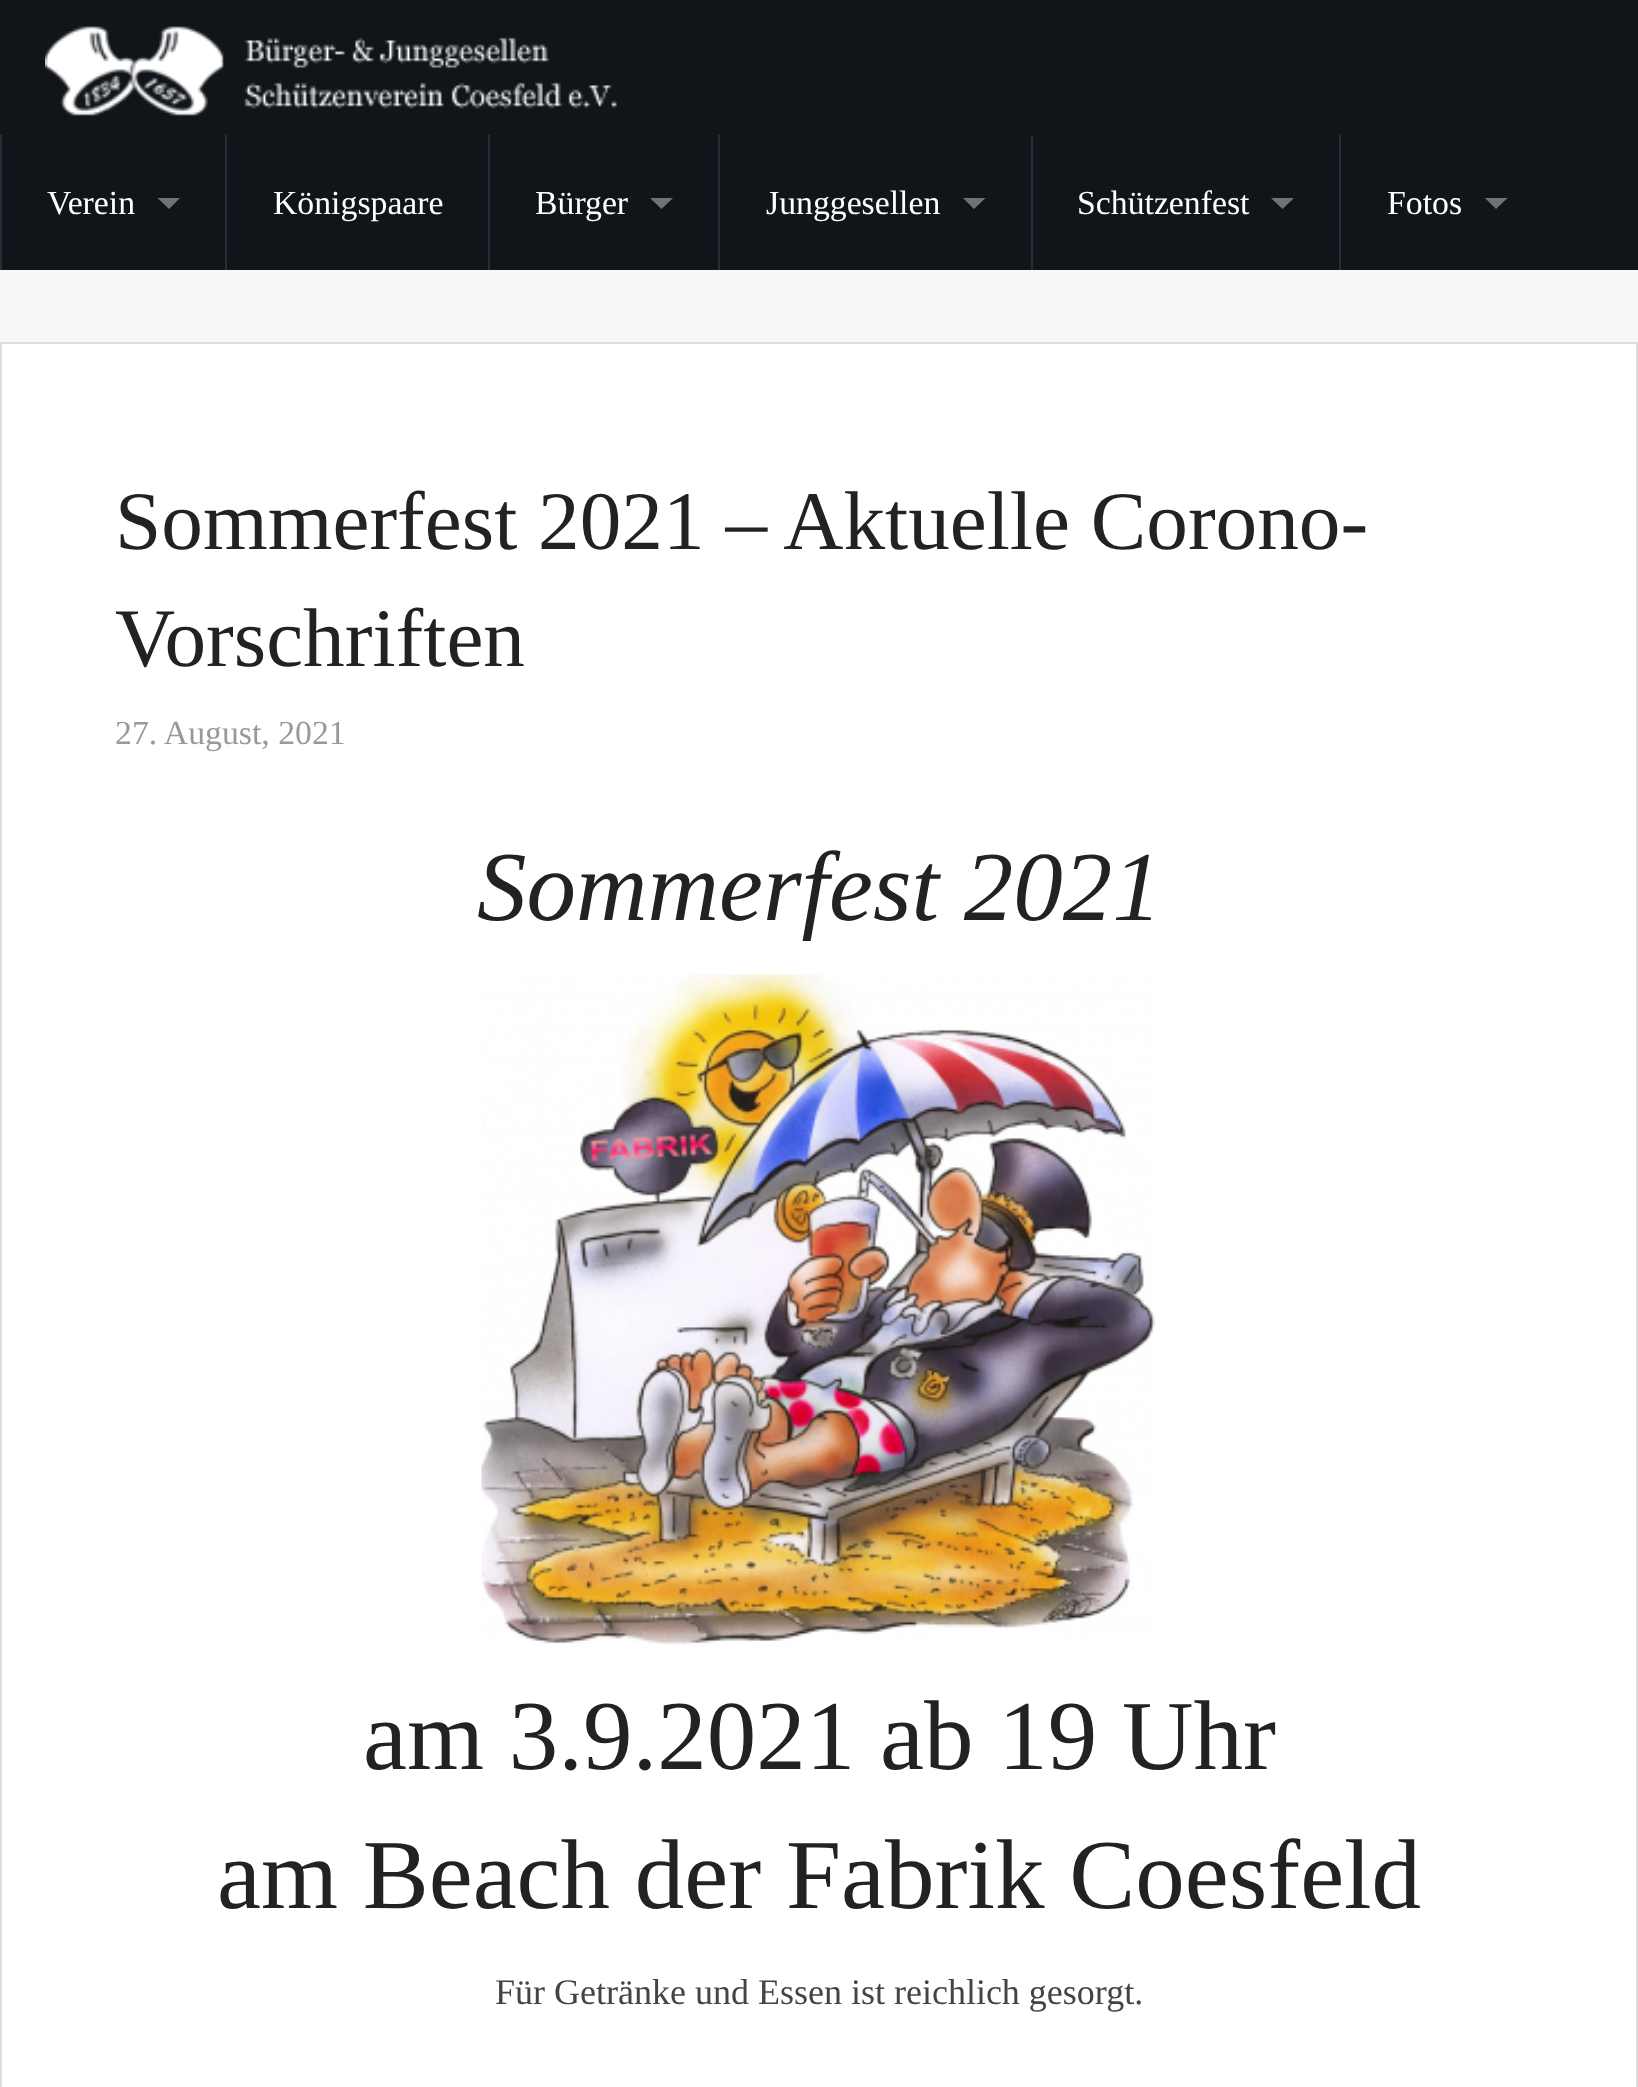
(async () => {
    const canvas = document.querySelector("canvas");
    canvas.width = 1638;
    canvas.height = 2087;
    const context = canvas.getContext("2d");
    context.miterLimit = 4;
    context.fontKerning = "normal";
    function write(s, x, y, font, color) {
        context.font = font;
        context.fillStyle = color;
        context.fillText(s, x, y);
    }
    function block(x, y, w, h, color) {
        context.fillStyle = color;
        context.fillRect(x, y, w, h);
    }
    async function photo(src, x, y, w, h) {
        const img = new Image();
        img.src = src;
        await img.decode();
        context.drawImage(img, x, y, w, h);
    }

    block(0, 0, 1638, 2087, "rgb(247, 247, 247)");
    block(0, 0, 1638, 270, "rgb(17, 21, 26)");
    await photo("media/1.png", 45, 26, 572, 90);
    block(0, 135, 2, 135, "rgb(37, 46, 57)");
    write("Verein", 47, 214, "33.75px Liberation Serif", "rgb(255, 255, 255)");
    context.fillStyle = "rgb(112, 115, 118)";
    context.beginPath();
    context.moveTo(157.5, 198);
    context.lineTo(180, 198);
    context.lineTo(169, 209);
    context.closePath();
    context.fill();
    block(225, 135, 2, 135, "rgb(37, 46, 57)");
    write("Königspaare", 273, 214, "33.75px Liberation Serif", "rgb(255, 255, 255)");
    block(488, 135, 2, 135, "rgb(37, 46, 57)");
    write("Bürger", 535, 214, "33.75px Liberation Serif", "rgb(255, 255, 255)");
    context.fillStyle = "rgb(112, 115, 118)";
    context.beginPath();
    context.moveTo(650, 198);
    context.lineTo(673, 198);
    context.lineTo(661.5, 209);
    context.closePath();
    context.fill();
    block(718, 135, 2, 135, "rgb(37, 46, 57)");
    write("Junggesellen", 766, 214, "33.75px Liberation Serif", "rgb(255, 255, 255)");
    context.fillStyle = "rgb(112, 115, 118)";
    context.beginPath();
    context.moveTo(963, 198);
    context.lineTo(985.5, 198);
    context.lineTo(974, 209);
    context.closePath();
    context.fill();
    block(1031, 135, 2, 135, "rgb(37, 46, 57)");
    write("Schützenfest", 1077, 214, "33.75px Liberation Serif", "rgb(255, 255, 255)");
    context.fillStyle = "rgb(112, 115, 118)";
    context.beginPath();
    context.moveTo(1271, 198);
    context.lineTo(1294, 198);
    context.lineTo(1282.5, 209);
    context.closePath();
    context.fill();
    block(1339, 135, 2, 135, "rgb(37, 46, 57)");
    write("Fotos", 1387, 214, "33.75px Liberation Serif", "rgb(255, 255, 255)");
    context.fillStyle = "rgb(112, 115, 118)";
    context.beginPath();
    context.moveTo(1485, 198);
    context.lineTo(1507.5, 198);
    context.lineTo(1496, 209);
    context.closePath();
    context.fill();
    context.fillStyle = "rgb(255, 255, 255)";
    context.beginPath();
    context.rect(1, 343, 1636, 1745);
    context.fill();
    context.strokeStyle = "rgb(221, 221, 221)";
    context.lineWidth = 2;
    context.stroke();
    write("Sommerfest 2021 – Aktuelle Corono-", 115, 549, "83.25px Liberation Serif", "rgb(34, 34, 34)");
    write("Vorschriften", 115, 666, "83.25px Liberation Serif", "rgb(34, 34, 34)");
    write("27. August, 2021", 115, 744, "33.75px Liberation Serif", "rgb(153, 153, 153)");
    write("Sommerfest 2021", 477, 920, "italic 99px Liberation Serif", "rgb(34, 34, 34)");
    await photo("media/2.png", 481, 974, 674, 671);
    write("am 3.9.2021 ab 19 Uhr", 363, 1769, "99px Liberation Serif", "rgb(34, 34, 34)");
    write("am Beach der Fabrik Coesfeld", 217, 1908, "99px Liberation Serif", "rgb(34, 34, 34)");
    write("Für Getränke und Essen ist reichlich gesorgt.", 495, 2004, "36px Liberation Serif", "rgb(68, 68, 68)");
})();
